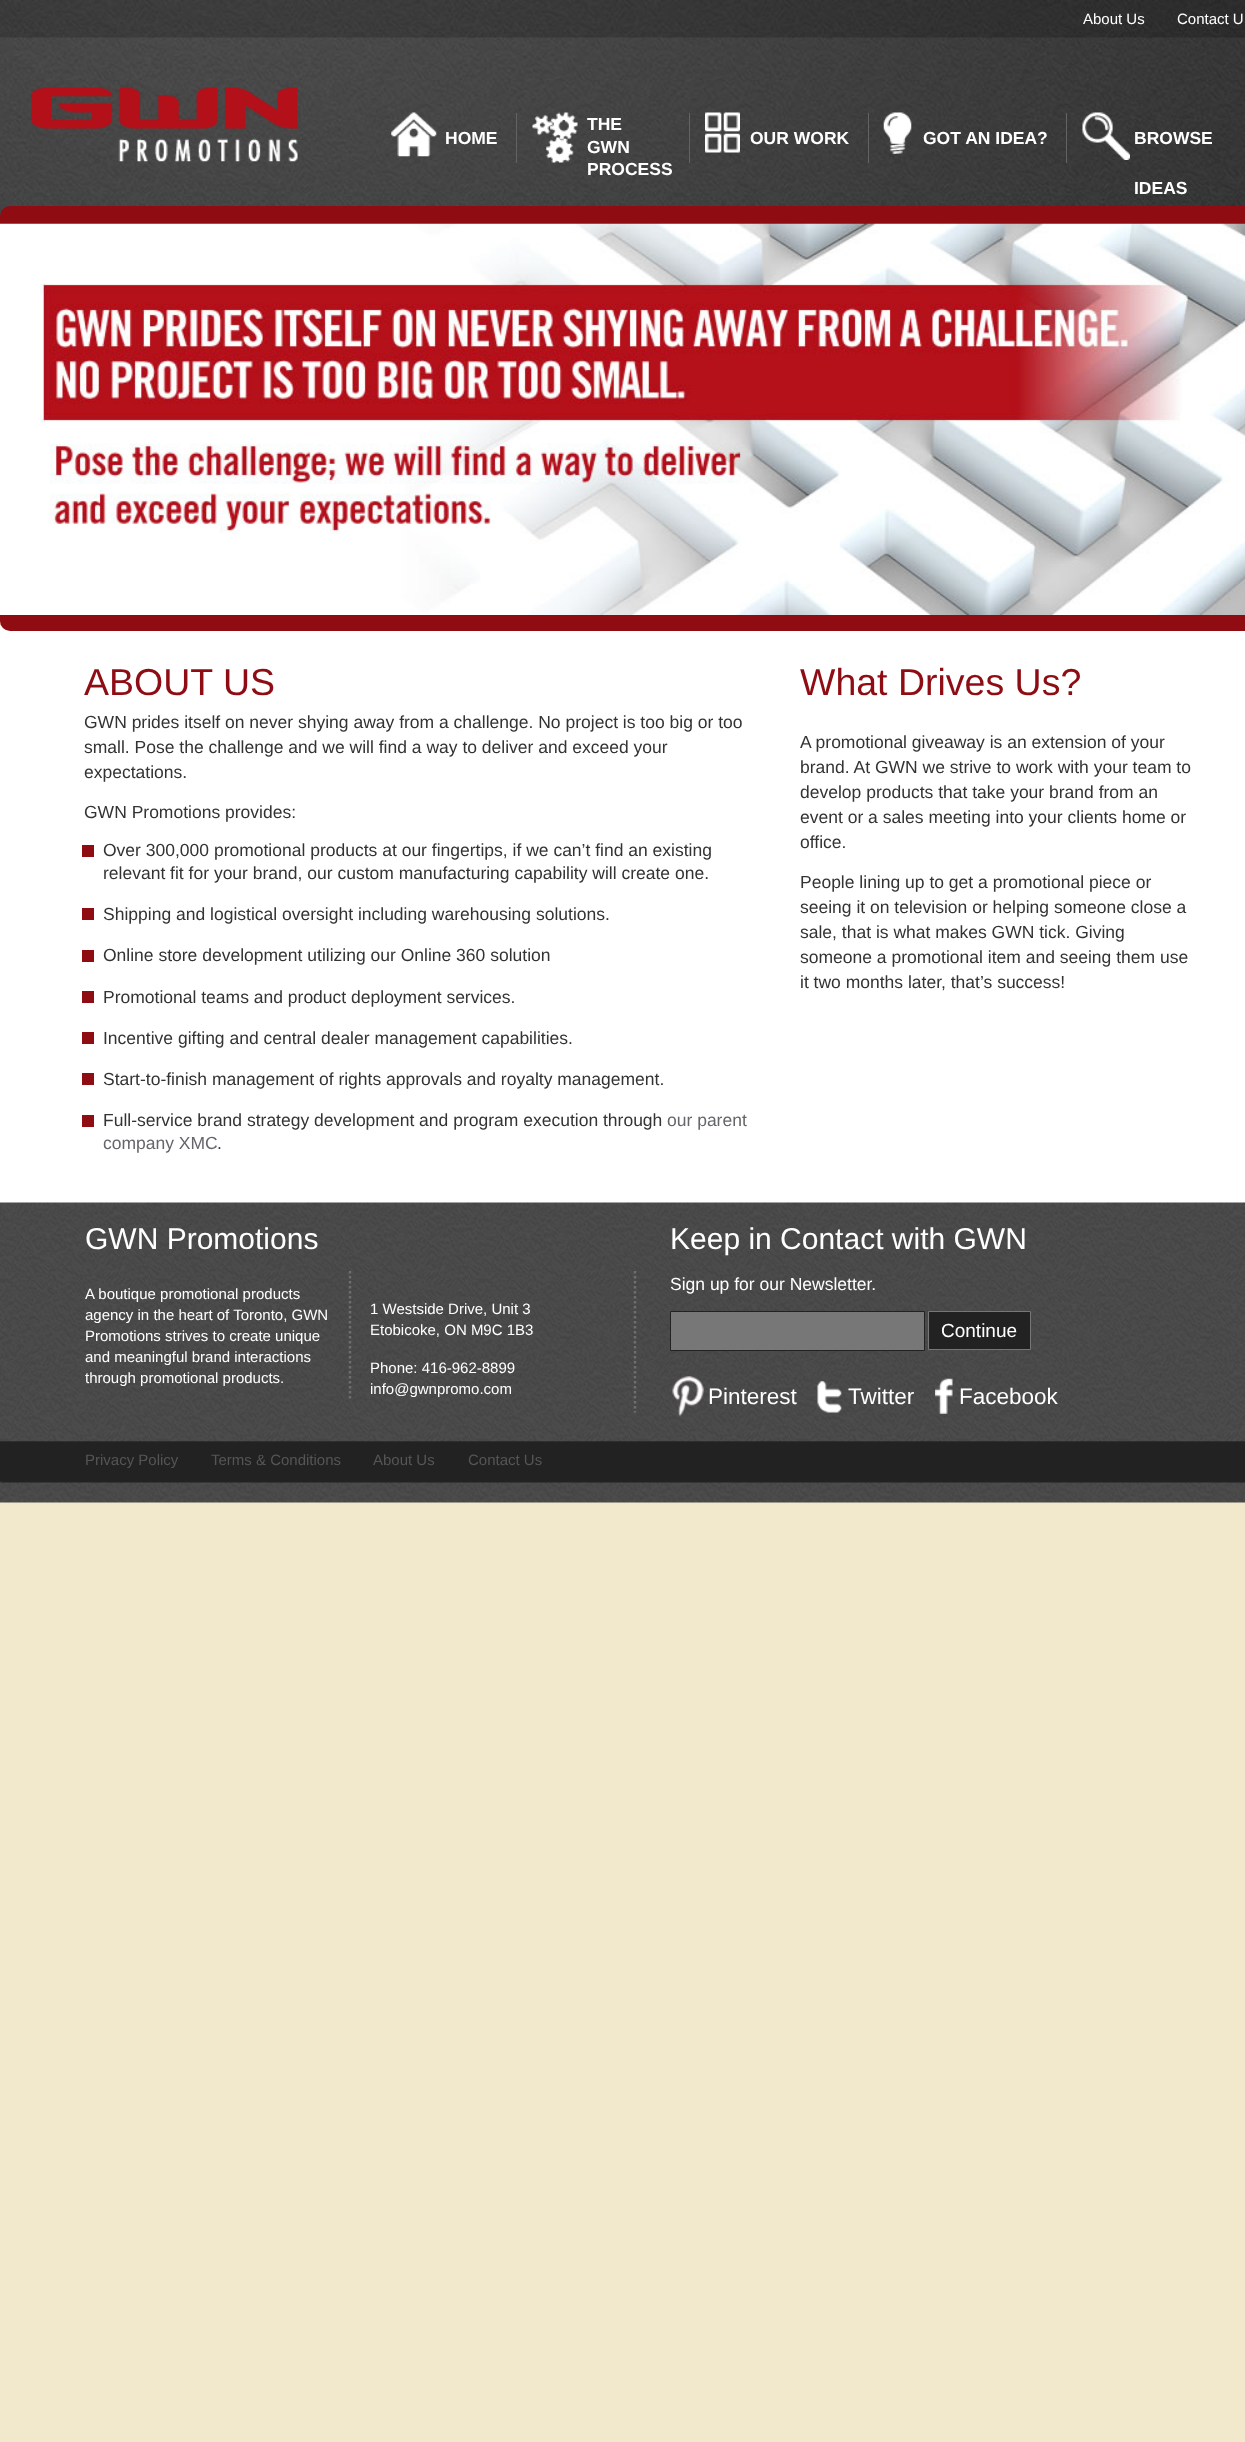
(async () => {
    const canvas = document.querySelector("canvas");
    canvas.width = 1245;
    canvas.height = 2442;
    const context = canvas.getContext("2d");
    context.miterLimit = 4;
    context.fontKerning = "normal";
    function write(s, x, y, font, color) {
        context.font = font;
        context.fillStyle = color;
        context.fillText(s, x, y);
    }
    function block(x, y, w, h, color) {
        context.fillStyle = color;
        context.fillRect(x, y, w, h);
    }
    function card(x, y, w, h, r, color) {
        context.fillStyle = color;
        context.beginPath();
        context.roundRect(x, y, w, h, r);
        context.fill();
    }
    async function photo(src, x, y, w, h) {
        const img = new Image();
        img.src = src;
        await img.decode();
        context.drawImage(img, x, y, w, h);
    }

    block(0, 0, 1245, 2442, "rgb(242, 233, 204)");
    await photo("media/1.png", 0, 0, 1245, 216);
    write("About Us", 1083, 24, "15px Liberation Sans", "rgb(255, 255, 255)");
    write("Contact U", 1177, 24, "15px Liberation Sans", "rgb(255, 255, 255)");
    await photo("media/2.png", 31, 87, 267, 75);
    await photo("media/3.png", 391, 112, 46, 45);
    write("HOME", 445, 144, "bold 17.5px Liberation Sans", "rgb(255, 255, 255)");
    block(516, 113, 1, 50, "rgb(99, 99, 99)");
    await photo("media/4.png", 532, 112, 46, 51);
    write("THE", 587, 130, "bold 17.5px Liberation Sans", "rgb(255, 255, 255)");
    write("GWN", 587, 153, "bold 17.5px Liberation Sans", "rgb(255, 255, 255)");
    write("PROCESS", 587, 175, "bold 17.5px Liberation Sans", "rgb(255, 255, 255)");
    block(689, 113, 1, 50, "rgb(99, 99, 99)");
    await photo("media/5.png", 705, 112, 35, 41);
    write("OUR WORK", 750, 144, "bold 17.5px Liberation Sans", "rgb(255, 255, 255)");
    block(868, 113, 1, 50, "rgb(99, 99, 99)");
    await photo("media/6.png", 883, 112, 29, 42);
    write("GOT AN IDEA?", 923, 144, "bold 17.5px Liberation Sans", "rgb(255, 255, 255)");
    block(1066, 113, 1, 50, "rgb(99, 99, 99)");
    await photo("media/7.png", 1082, 112, 48, 48);
    write("BROWSE", 1134, 144, "bold 17.5px Liberation Sans", "rgb(255, 255, 255)");
    write("IDEAS", 1134, 194, "bold 17.5px Liberation Sans", "rgb(255, 255, 255)");
    block(0, 625, 1245, 578, "rgb(255, 255, 255)");
    card(0, 206, 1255, 425, 10, "rgb(143, 12, 19)");
    await photo("media/8.png", 0, 223, 1245, 392);
    write("ABOUT US", 84, 695, "37.5px Liberation Sans", "rgb(142, 12, 19)");
    write("GWN prides itself on never shying away from a challenge. No project is too big or too", 84, 728, "17.5px Liberation Sans", "rgb(51, 51, 51)");
    write("small. Pose the challenge and we will find a way to deliver and exceed your", 84, 753, "17.5px Liberation Sans", "rgb(51, 51, 51)");
    write("expectations.", 84, 778, "17.5px Liberation Sans", "rgb(51, 51, 51)");
    write("GWN Promotions provides:", 84, 818, "17.5px Liberation Sans", "rgb(51, 51, 51)");
    block(82, 845, 12, 12, "rgb(143, 12, 19)");
    write("Over 300,000 promotional products at our fingertips, if we can’t find an existing", 103, 856, "17.5px Liberation Sans", "rgb(51, 51, 51)");
    write("relevant fit for your brand, our custom manufacturing capability will create one.", 103, 879, "17.5px Liberation Sans", "rgb(51, 51, 51)");
    block(82, 908, 12, 12, "rgb(143, 12, 19)");
    write("Shipping and logistical oversight including warehousing solutions.", 103, 920, "17.5px Liberation Sans", "rgb(51, 51, 51)");
    block(82, 950, 12, 12, "rgb(143, 12, 19)");
    write("Online store development utilizing our Online 360 solution", 103, 961, "17.5px Liberation Sans", "rgb(51, 51, 51)");
    block(82, 991, 12, 12, "rgb(143, 12, 19)");
    write("Promotional teams and product deployment services.", 103, 1003, "17.5px Liberation Sans", "rgb(51, 51, 51)");
    block(82, 1032, 12, 12, "rgb(143, 12, 19)");
    write("Incentive gifting and central dealer management capabilities.", 103, 1044, "17.5px Liberation Sans", "rgb(51, 51, 51)");
    block(82, 1073, 12, 12, "rgb(143, 12, 19)");
    write("Start-to-finish management of rights approvals and royalty management.", 103, 1085, "17.5px Liberation Sans", "rgb(51, 51, 51)");
    block(82, 1115, 12, 12, "rgb(143, 12, 19)");
    write("Full-service brand strategy development and program execution through", 103, 1126, "17.5px Liberation Sans", "rgb(51, 51, 51)");
    write("our parent", 667, 1126, "17.5px Liberation Sans", "rgb(100, 102, 107)");
    write("company XMC", 103, 1149, "17.5px Liberation Sans", "rgb(100, 102, 107)");
    write(".", 217, 1149, "17.5px Liberation Sans", "rgb(51, 51, 51)");
    write("What Drives Us?", 800, 695, "37.5px Liberation Sans", "rgb(142, 12, 19)");
    write("A promotional giveaway is an extension of your", 800, 748, "17.5px Liberation Sans", "rgb(51, 51, 51)");
    write("brand. At GWN we strive to work with your team to", 800, 773, "17.5px Liberation Sans", "rgb(51, 51, 51)");
    write("develop products that take your brand from an", 800, 798, "17.5px Liberation Sans", "rgb(51, 51, 51)");
    write("event or a sales meeting into your clients home or", 800, 823, "17.5px Liberation Sans", "rgb(51, 51, 51)");
    write("office.", 800, 848, "17.5px Liberation Sans", "rgb(51, 51, 51)");
    write("People lining up to get a promotional piece or", 800, 888, "17.5px Liberation Sans", "rgb(51, 51, 51)");
    write("seeing it on television or helping someone close a", 800, 913, "17.5px Liberation Sans", "rgb(51, 51, 51)");
    write("sale, that is what makes GWN tick. Giving", 800, 938, "17.5px Liberation Sans", "rgb(51, 51, 51)");
    write("someone a promotional item and seeing them use", 800, 963, "17.5px Liberation Sans", "rgb(51, 51, 51)");
    write("it two months later, that’s success!", 800, 988, "17.5px Liberation Sans", "rgb(51, 51, 51)");
    await photo("media/9.png", 0, 1202, 1245, 301);
    write("GWN Promotions", 85, 1249, "30px Liberation Sans", "rgb(255, 255, 255)");
    write("Keep in Contact with GWN", 670, 1249, "30px Liberation Sans", "rgb(255, 255, 255)");
    write("Sign up for our Newsletter.", 670, 1290, "17.5px Liberation Sans", "rgb(255, 255, 255)");
    context.fillStyle = "rgb(119, 119, 119)";
    context.beginPath();
    context.rect(670.5, 1311.5, 254, 39);
    context.fill();
    context.strokeStyle = "rgb(34, 34, 34)";
    context.stroke();
    context.fillStyle = "rgb(34, 34, 34)";
    context.beginPath();
    context.rect(928.5, 1311.5, 102, 38);
    context.fill();
    context.strokeStyle = "rgb(119, 119, 119)";
    context.stroke();
    write("Continue", 941, 1337, "19px Liberation Sans", "rgb(255, 255, 255)");
    context.beginPath();
    context.moveTo(350, 1271);
    context.lineTo(350, 1401);
    context.strokeStyle = "rgb(110, 110, 110)";
    context.lineWidth = 2.5;
    context.setLineDash([2.5, 2.5]);
    context.stroke();
    write("A boutique promotional products", 85, 1299, "15px Liberation Sans", "rgb(255, 255, 255)");
    write("agency in the heart of Toronto, GWN", 85, 1320, "15px Liberation Sans", "rgb(255, 255, 255)");
    write("Promotions strives to create unique", 85, 1341, "15px Liberation Sans", "rgb(255, 255, 255)");
    write("and meaningful brand interactions", 85, 1362, "15px Liberation Sans", "rgb(255, 255, 255)");
    write("through promotional products.", 85, 1383, "15px Liberation Sans", "rgb(255, 255, 255)");
    context.beginPath();
    context.moveTo(635, 1271);
    context.lineTo(635, 1412.5);
    context.stroke();
    write("1 Westside Drive, Unit 3", 370, 1314, "15px Liberation Sans", "rgb(255, 255, 255)");
    write("Etobicoke, ON M9C 1B3", 370, 1335, "15px Liberation Sans", "rgb(255, 255, 255)");
    write("Phone: 416-962-8899", 370, 1373, "15px Liberation Sans", "rgb(255, 255, 255)");
    write("info@gwnpromo.com", 370, 1394, "15px Liberation Sans", "rgb(255, 255, 255)");
    await photo("media/10.png", 672, 1376, 32, 41);
    write("Pinterest", 708, 1404, "22.5px Liberation Sans", "rgb(255, 255, 255)");
    await photo("media/11.png", 817, 1381, 25, 32);
    write("Twitter", 848, 1404, "22.5px Liberation Sans", "rgb(255, 255, 255)");
    await photo("media/12.png", 935, 1378, 18, 36);
    write("Facebook", 959, 1404, "22.5px Liberation Sans", "rgb(255, 255, 255)");
    write("Privacy Policy", 85, 1465, "15px Liberation Sans", "rgb(85, 85, 85)");
    write("Terms & Conditions", 211, 1465, "15px Liberation Sans", "rgb(85, 85, 85)");
    write("About Us", 373, 1465, "15px Liberation Sans", "rgb(85, 85, 85)");
    write("Contact Us", 468, 1465, "15px Liberation Sans", "rgb(85, 85, 85)");
})();
